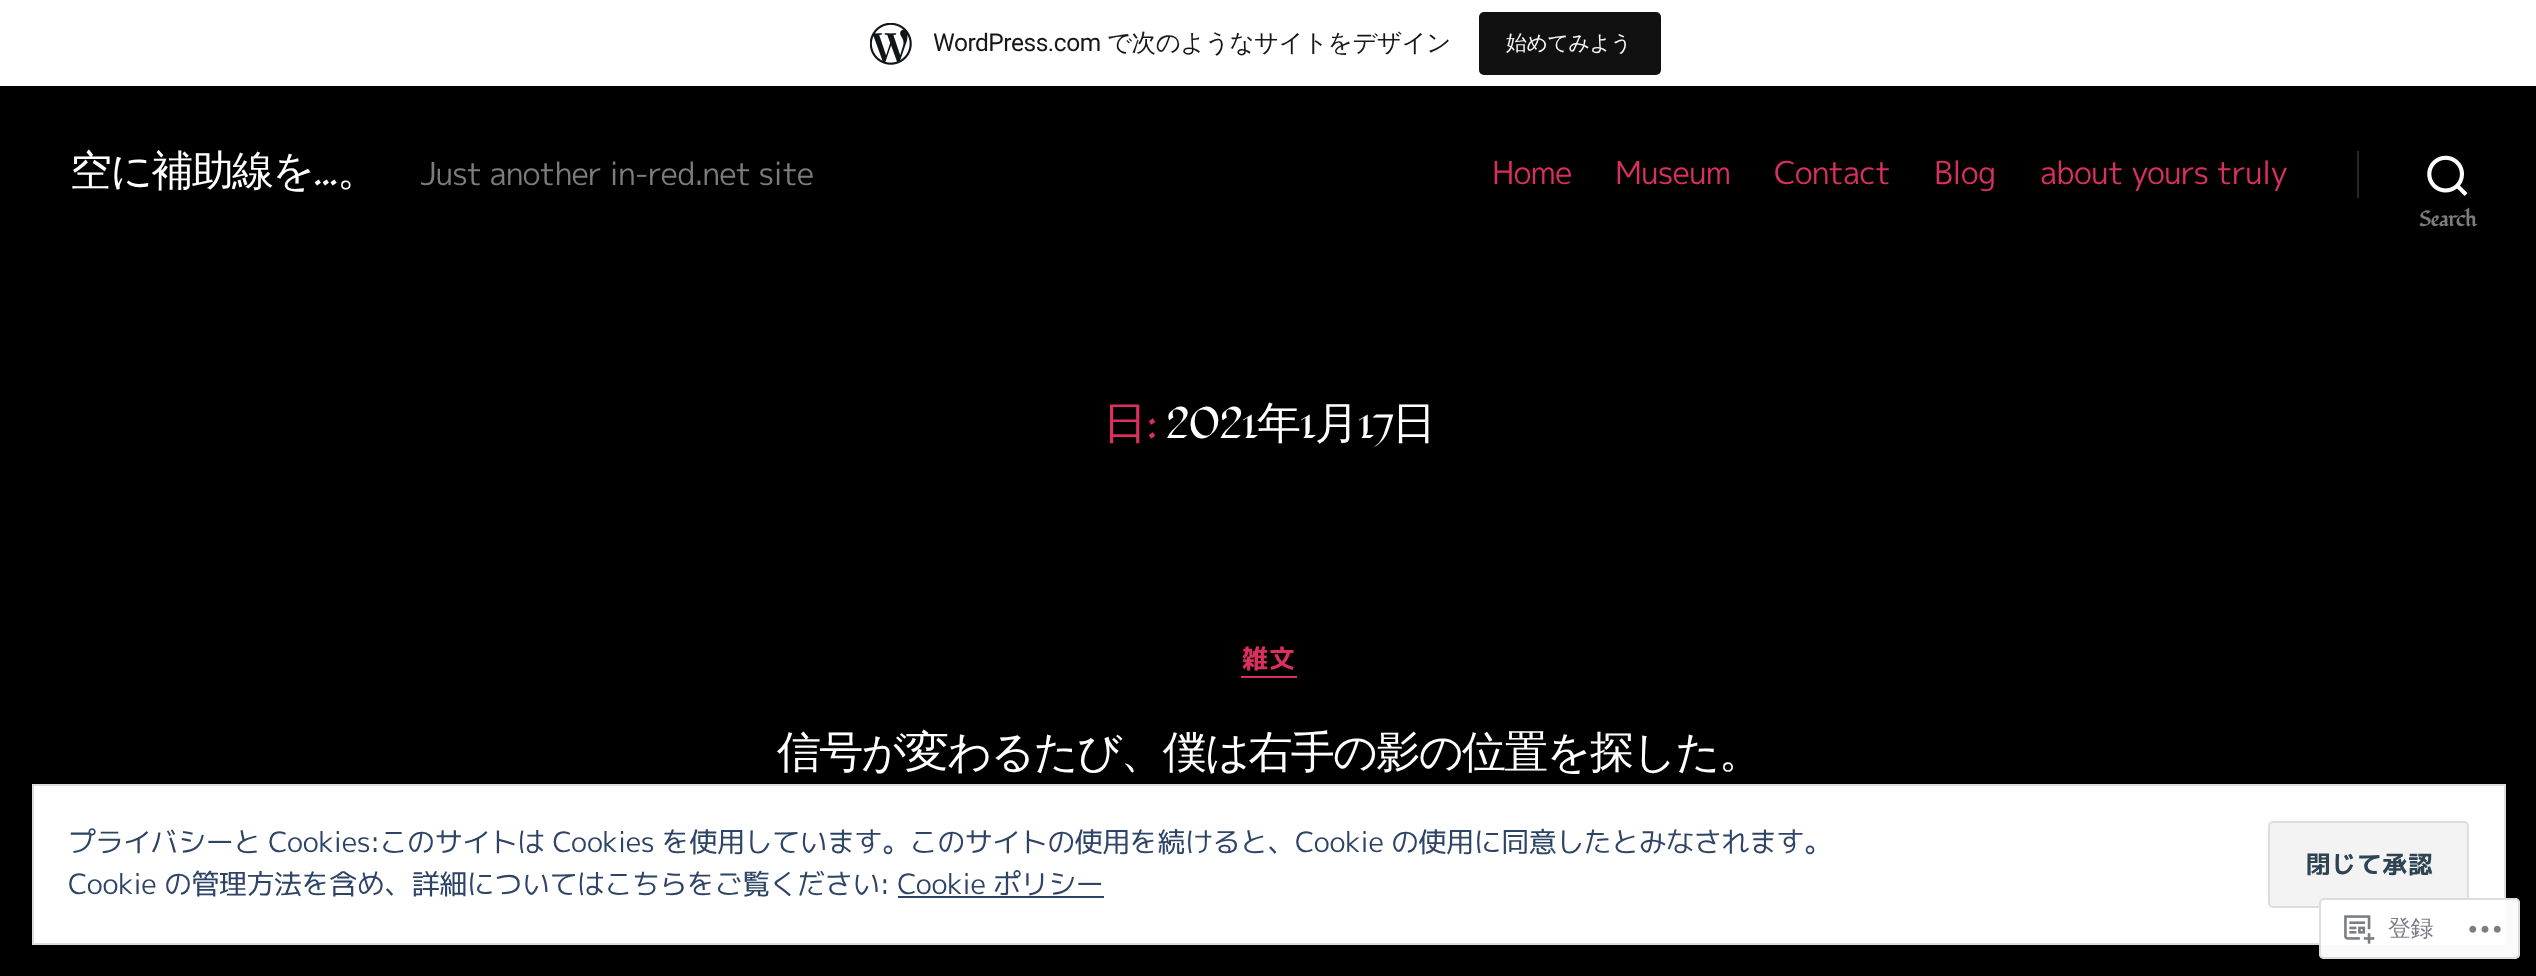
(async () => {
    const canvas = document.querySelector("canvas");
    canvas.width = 2536;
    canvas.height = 976;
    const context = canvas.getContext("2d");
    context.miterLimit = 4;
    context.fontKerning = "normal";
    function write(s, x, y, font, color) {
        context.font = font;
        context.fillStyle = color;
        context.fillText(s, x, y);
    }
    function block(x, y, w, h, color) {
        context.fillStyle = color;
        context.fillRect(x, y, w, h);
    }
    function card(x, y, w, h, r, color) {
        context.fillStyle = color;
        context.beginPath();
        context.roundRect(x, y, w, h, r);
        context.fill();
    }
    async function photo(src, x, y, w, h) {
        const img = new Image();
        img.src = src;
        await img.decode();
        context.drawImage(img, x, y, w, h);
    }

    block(0, 0, 2536, 976, "rgb(0, 0, 0)");
    block(0, 0, 2536, 86, "rgb(255, 255, 255)");
    await photo("media/1.png", 870, 23, 42, 42);
    context.letterSpacing = "-0.47px";
    write("WordPress.com", 933, 51, "24.5px Roboto", "rgb(23, 23, 23)");
    write("で次のようなサイトをデザイン", 1107, 51, "500 24.5px WenQuanYi Zen Hei", "rgb(23, 23, 23)");
    card(1479, 12, 182, 63, 5, "rgb(17, 17, 17)");
    write("始めてみよう", 1506, 50, "500 21px WenQuanYi Zen Hei", "rgb(246, 247, 247)");
    context.letterSpacing = "-1.75px";
    write("空に補助線を", 70, 185, "500 42px WenQuanYi Zen Hei", "rgb(255, 255, 255)");
    write("...", 313, 185, "42px Fondamento", "rgb(255, 255, 255)");
    write("。", 337, 185, "500 42px WenQuanYi Zen Hei", "rgb(255, 255, 255)");
    context.letterSpacing = "-1px";
    write("Just another in-red.net site", 420, 185, "31.5px 'M PLUS 1p'", "rgb(124, 124, 124)");
    context.letterSpacing = "-0.9px";
    write("Home", 1492, 184, "31.5px 'M PLUS 1p'", "rgb(217, 48, 93)");
    write("Museum", 1615, 184, "31.5px 'M PLUS 1p'", "rgb(217, 48, 93)");
    write("Contact", 1774, 184, "31.5px 'M PLUS 1p'", "rgb(217, 48, 93)");
    write("Blog", 1934, 184, "31.5px 'M PLUS 1p'", "rgb(217, 48, 93)");
    write("about yours truly", 2040, 184, "31.5px 'M PLUS 1p'", "rgb(217, 48, 93)");
    block(2357, 151, 2, 47, "rgb(38, 38, 38)");
    await photo("media/2.png", 2427, 155, 41, 41);
    context.letterSpacing = "-0.47px";
    write("Search", 2419, 226, "bold 21px Fondamento", "rgb(124, 124, 124)");
    context.letterSpacing = "-1px";
    write("日", 1103, 438, "500 44.1px WenQuanYi Zen Hei", "rgb(217, 48, 93)");
    write(":", 1146, 438, "44.1px Fondamento", "rgb(217, 48, 93)");
    write("2021", 1166, 438, "44.1px Fondamento", "rgb(255, 255, 255)");
    write("年", 1257, 438, "500 44.1px WenQuanYi Zen Hei", "rgb(255, 255, 255)");
    write("1", 1300, 438, "44.1px Fondamento", "rgb(255, 255, 255)");
    write("月", 1315, 438, "500 44.1px WenQuanYi Zen Hei", "rgb(255, 255, 255)");
    write("17", 1358, 438, "44.1px Fondamento", "rgb(255, 255, 255)");
    write("日", 1392, 438, "500 44.1px WenQuanYi Zen Hei", "rgb(255, 255, 255)");
    block(1241, 676, 56, 2, "rgb(217, 48, 93)");
    context.letterSpacing = "1px";
    write("雑文", 1242, 668, "bold 26px 'M PLUS 1p'", "rgb(217, 48, 93)");
    context.letterSpacing = "-1.8px";
    write("信号が変わるたび、僕は右手の影の位置を探した。", 777, 767, "500 44.1px WenQuanYi Zen Hei", "rgb(255, 255, 255)");
    context.beginPath();
    context.rect(33, 785, 2472, 159);
    context.fill();
    context.strokeStyle = "rgb(222, 222, 222)";
    context.lineWidth = 2;
    context.stroke();
    context.letterSpacing = "-0.47px";
    write("プライバシーと Cookies:このサイトは Cookies を使用しています。このサイトの使用を続けると、Cookie の使用に同意したとみなされます。", 68, 852, "28px 'M PLUS 1p'", "rgb(46, 68, 103)");
    context.fillStyle = "rgb(243, 243, 243)";
    context.beginPath();
    context.roundRect(2269, 822, 199, 85, 4);
    context.fill();
    context.stroke();
    context.letterSpacing = "1px";
    write("閉じて承認", 2306, 873, "bold 24.5px 'M PLUS 1p'", "rgb(46, 68, 83)");
    context.letterSpacing = "-0.47px";
    write("Cookie の管理方法を含め、詳細についてはこちらをご覧ください: Cookie ポリシー", 68, 894, "28px 'M PLUS 1p'", "rgb(46, 68, 103)");
    block(898, 896, 206, 2, "rgb(46, 68, 103)");
    card(2319, 898, 201, 61, 5, "rgba(255, 255, 255, 0.98)");
    context.beginPath();
    context.roundRect(2320, 899, 199, 59, 4);
    context.strokeStyle = "rgba(220, 220, 222, 0.98)";
    context.stroke();
    await photo("media/3.png", 2344, 915, 31, 29);
    write("登録", 2388, 936, "500 23px WenQuanYi Zen Hei", "rgb(123, 127, 133)");
    await photo("media/4.png", 2469, 925, 32, 8);
})();
